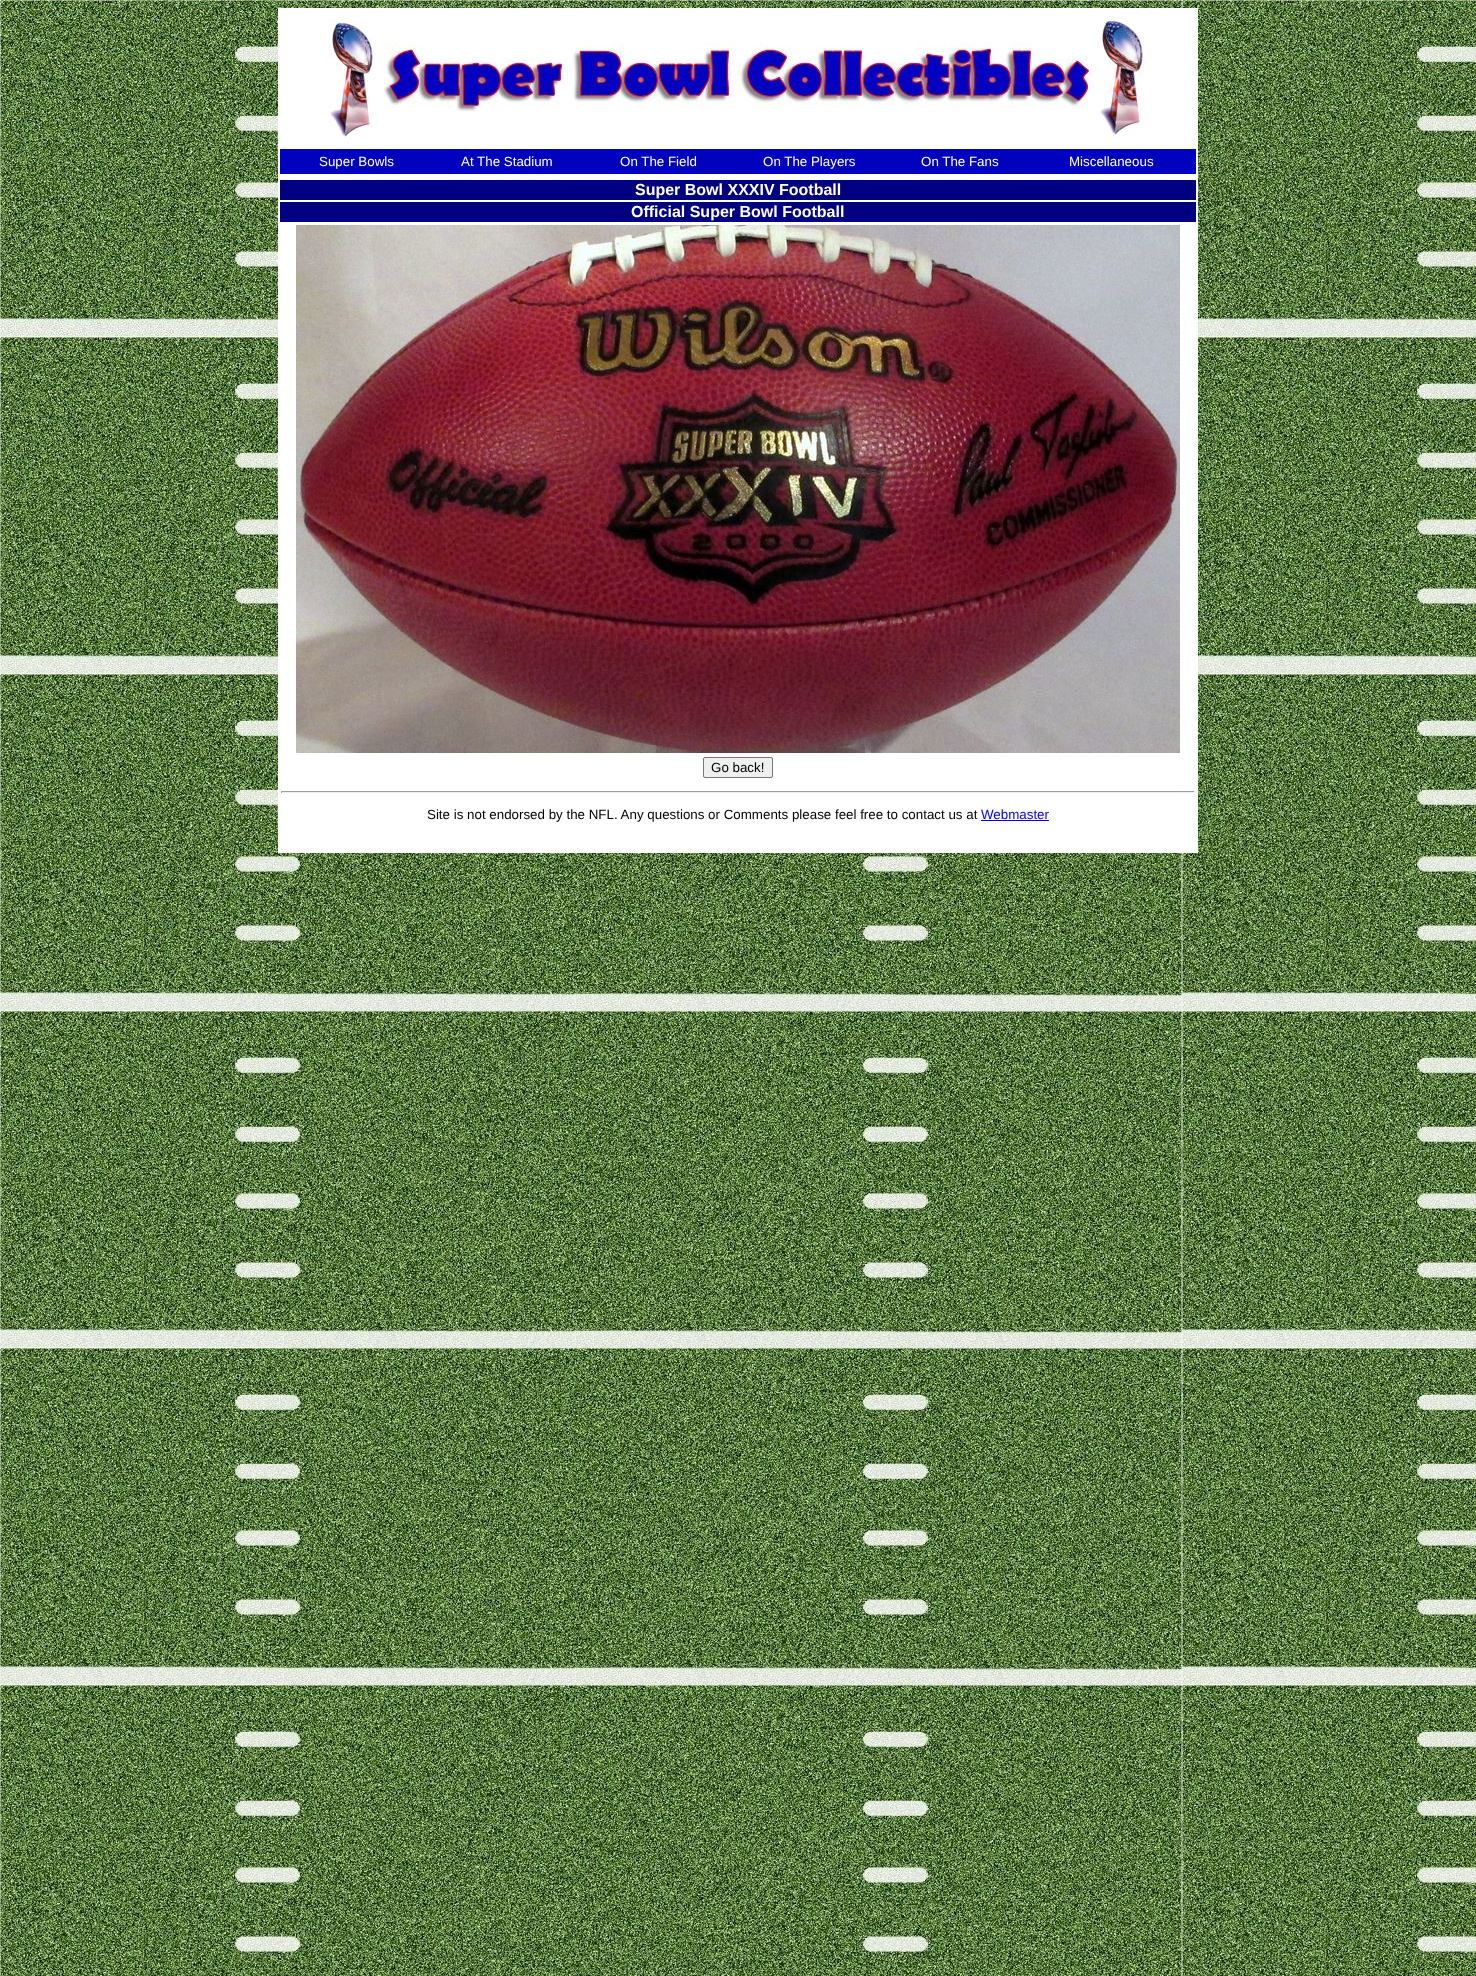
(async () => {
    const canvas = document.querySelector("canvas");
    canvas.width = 1476;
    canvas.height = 1976;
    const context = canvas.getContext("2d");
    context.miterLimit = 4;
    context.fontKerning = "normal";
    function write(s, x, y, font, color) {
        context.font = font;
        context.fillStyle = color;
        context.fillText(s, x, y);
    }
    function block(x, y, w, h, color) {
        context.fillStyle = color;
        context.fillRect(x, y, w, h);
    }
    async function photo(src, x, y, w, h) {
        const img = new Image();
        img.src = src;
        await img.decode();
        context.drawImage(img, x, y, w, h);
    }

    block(0, 0, 1476, 1976, "rgb(255, 255, 255)");
    await photo("media/1.png", 0, 0, 1476, 1976);
    block(278, 8, 920, 845, "rgb(255, 255, 255)");
    await photo("media/2.png", 320, 11, 832, 128);
    block(280, 149, 916, 25, "rgb(0, 2, 189)");
    write("Super Bowls", 319, 166, "13.35px Liberation Sans", "rgb(255, 255, 255)");
    write("At The Stadium", 461, 166, "13.35px Liberation Sans", "rgb(255, 255, 255)");
    write("On The Field", 620, 166, "13.35px Liberation Sans", "rgb(255, 255, 255)");
    write("On The Players", 763, 166, "13.35px Liberation Sans", "rgb(255, 255, 255)");
    write("On The Fans", 921, 166, "13.35px Liberation Sans", "rgb(255, 255, 255)");
    write("Miscellaneous", 1069, 166, "13.35px Liberation Sans", "rgb(255, 255, 255)");
    block(280, 180, 916, 20, "rgb(0, 0, 128)");
    write("Super Bowl XXXIV Football", 635, 195, "bold 16px Liberation Sans", "rgb(255, 255, 255)");
    block(280, 202, 916, 20, "rgb(0, 0, 128)");
    write("Official Super Bowl Football", 631, 217, "bold 16px Liberation Sans", "rgb(255, 255, 255)");
    await photo("media/3.png", 296, 225, 884, 528);
    context.fillStyle = "rgb(239, 239, 239)";
    context.beginPath();
    context.roundRect(703.5, 757.5, 69, 20, 1.5);
    context.fill();
    context.strokeStyle = "rgb(118, 118, 118)";
    context.stroke();
    write("Go back!", 711, 772, "13.35px Liberation Sans", "rgb(0, 0, 0)");
    block(281, 791, 914, 1, "rgb(159, 159, 159)");
    block(1194, 791, 1, 2, "rgb(238, 238, 238)");
    block(281, 792, 914, 1, "rgb(238, 238, 238)");
    block(281, 791, 1, 2, "rgb(159, 159, 159)");
    write("Site is not endorsed by the NFL. Any questions or Comments please feel free to contact us at", 427, 819, "13.35px Liberation Sans", "rgb(0, 0, 0)");
    write("Webmaster", 981, 819, "13.35px Liberation Sans", "rgb(0, 0, 238)");
    block(981, 820, 68, 1, "rgb(0, 0, 238)");
})();
